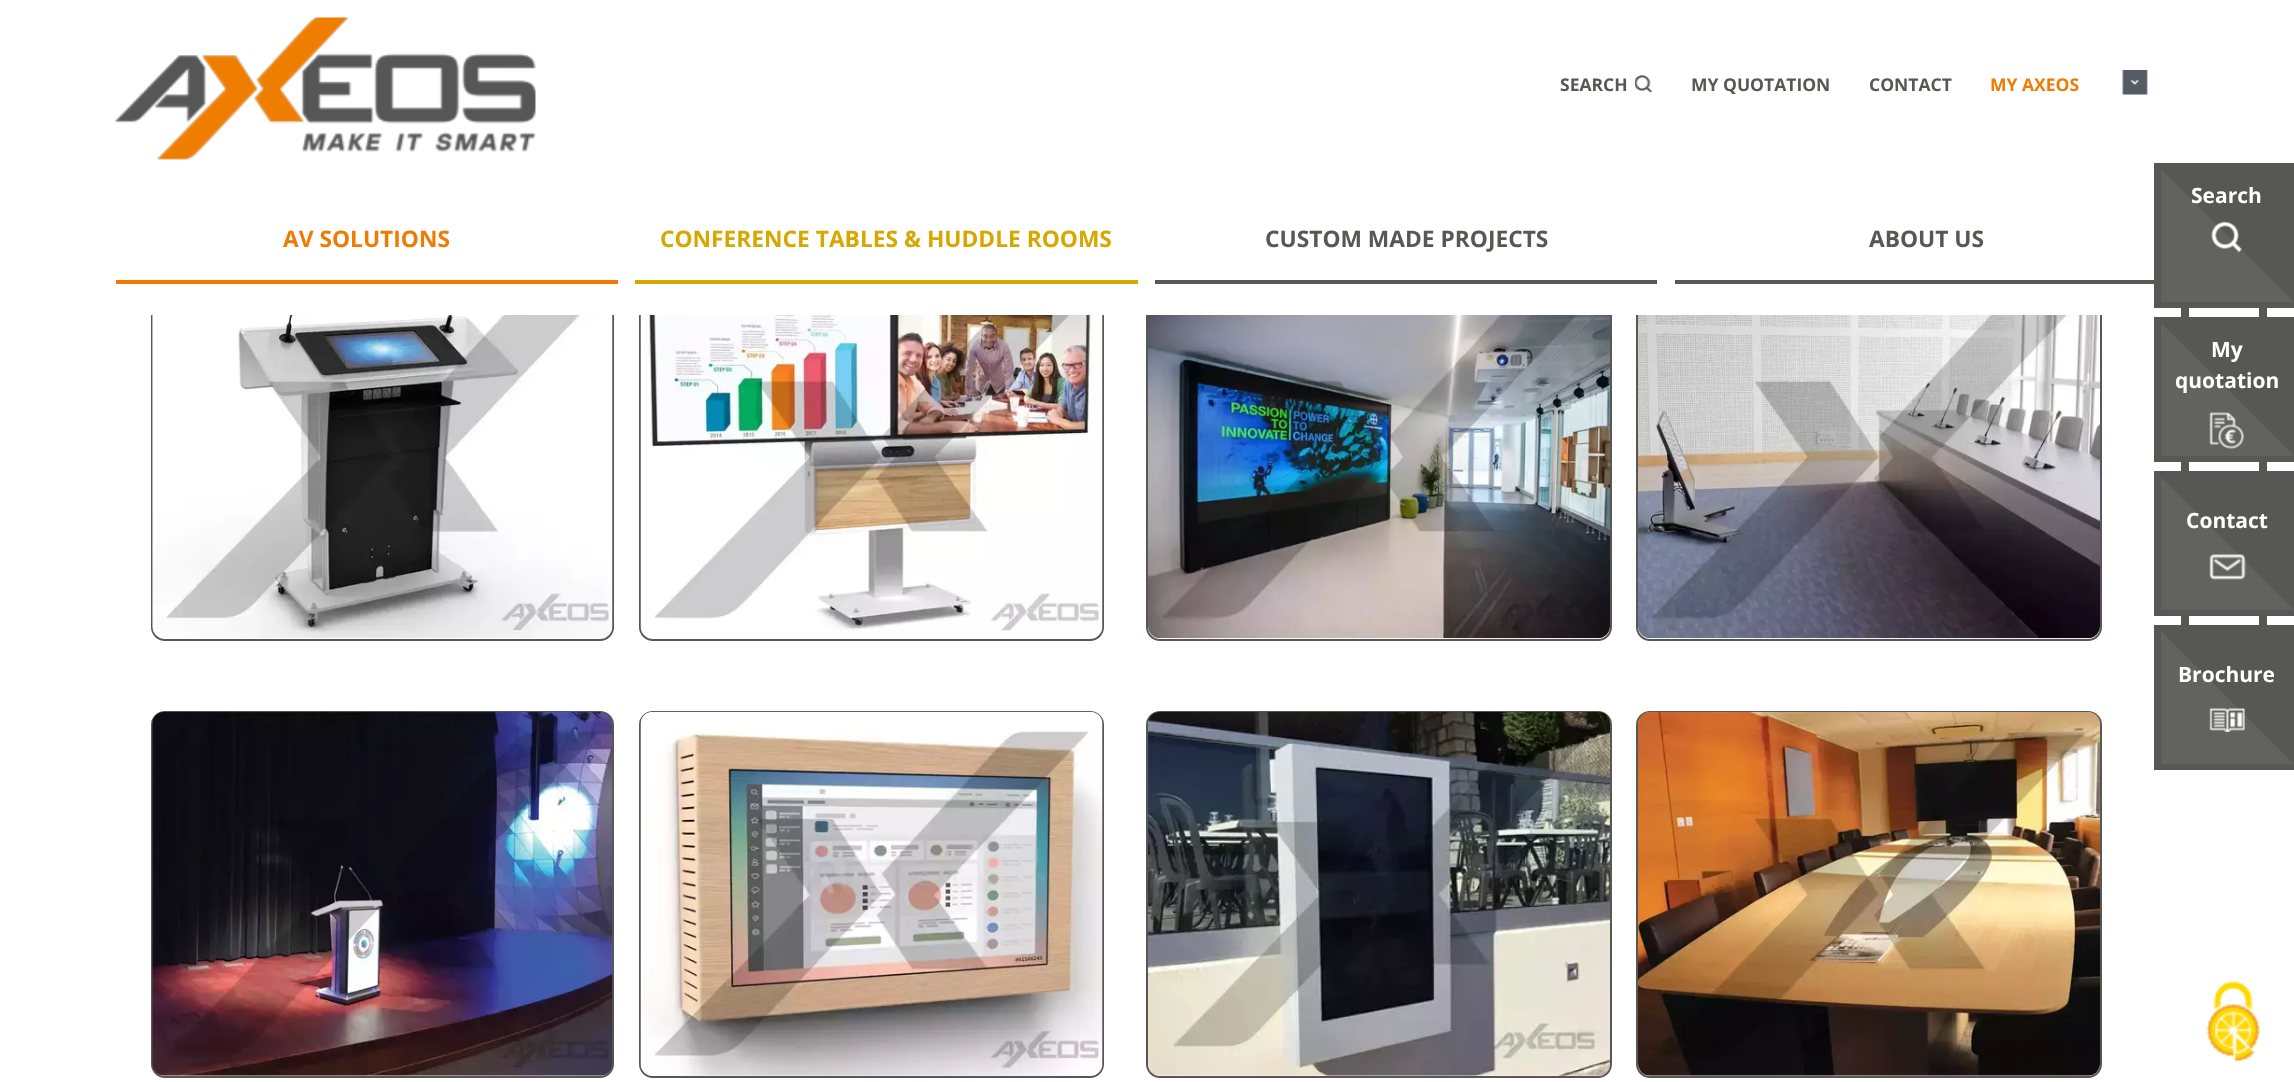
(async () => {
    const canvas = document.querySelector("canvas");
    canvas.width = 2294;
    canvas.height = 1082;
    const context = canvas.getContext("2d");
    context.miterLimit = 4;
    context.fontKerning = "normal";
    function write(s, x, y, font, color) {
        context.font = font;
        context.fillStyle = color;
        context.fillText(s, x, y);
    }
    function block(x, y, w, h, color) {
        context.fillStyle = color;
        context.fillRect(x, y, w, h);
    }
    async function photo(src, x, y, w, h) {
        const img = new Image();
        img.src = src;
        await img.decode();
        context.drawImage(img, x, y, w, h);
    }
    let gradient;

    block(0, 0, 2294, 1082, "rgb(255, 255, 255)");
    await photo("media/1.png", 115, 17, 421, 143);
    write("SEARCH", 1560, 91, "bold 17.5px Open Sans", "rgb(87, 87, 86)");
    await photo("media/2.png", 1635, 75, 18, 18);
    write("MY QUOTATION", 1691, 91, "bold 17.5px Open Sans", "rgb(87, 87, 86)");
    write("CONTACT", 1869, 91, "bold 17.5px Open Sans", "rgb(87, 87, 86)");
    write("MY AXEOS", 1990, 91, "bold 17.5px Open Sans", "rgb(239, 123, 5)");
    await photo("media/3.png", 2122, 70, 26, 25);
    context.beginPath();
    context.roundRect(152, 274, 461, 366, 13);
    context.strokeStyle = "rgb(87, 87, 86)";
    context.lineWidth = 2;
    context.stroke();
    context.beginPath();
    context.roundRect(640, 274, 463, 366, 13);
    context.stroke();
    context.beginPath();
    context.roundRect(1147, 274, 464, 366, 13);
    context.stroke();
    context.beginPath();
    context.roundRect(1637, 274, 464, 366, 13);
    context.stroke();
    block(151, 273, 1951, 42, "rgb(255, 255, 255)");
    block(116, 280, 502, 4, "rgb(239, 123, 5)");
    write("AV SOLUTIONS", 283, 247, "bold 22.75px Open Sans", "rgb(239, 123, 5)");
    block(635, 280, 503, 4, "rgb(215, 167, 0)");
    write("CONFERENCE TABLES & HUDDLE ROOMS", 660, 247, "bold 22.75px Open Sans", "rgb(215, 167, 0)");
    block(1155, 280, 502, 4, "rgb(87, 87, 86)");
    write("CUSTOM MADE PROJECTS", 1265, 247, "bold 22.75px Open Sans", "rgb(87, 87, 86)");
    block(1675, 280, 479, 4, "rgb(87, 87, 86)");
    write("ABOUT US", 1869, 247, "bold 22.75px Open Sans", "rgb(87, 87, 86)");
    await photo("media/4.png", 1104, 315, 42, 6);
    await photo("media/5.png", 152, 315, 461, 323);
    await photo("media/6.png", 640, 315, 463, 323);
    await photo("media/7.png", 1148, 315, 462, 324);
    await photo("media/8.png", 1638, 315, 462, 324);
    context.beginPath();
    context.roundRect(152, 712, 461, 365, 13);
    context.stroke();
    await photo("media/9.png", 152, 711, 461, 365);
    context.beginPath();
    context.roundRect(640, 712, 463, 365, 13);
    context.stroke();
    await photo("media/10.png", 640, 711, 463, 365);
    context.beginPath();
    context.roundRect(1147, 712, 464, 365, 13);
    context.stroke();
    await photo("media/11.png", 1148, 711, 462, 365);
    context.beginPath();
    context.roundRect(1637, 712, 464, 365, 13);
    context.stroke();
    await photo("media/12.png", 1638, 711, 462, 365);
    gradient = context.createLinearGradient(2294, 466, 2154, 466);
    gradient.addColorStop(0, "rgba(0, 0, 0, 0)");
    gradient.addColorStop(0.19, "rgba(87, 87, 86, 0)");
    gradient.addColorStop(0.19, "rgb(87, 87, 86)");
    gradient.addColorStop(0.25, "rgb(87, 87, 86)");
    gradient.addColorStop(0.25, "rgba(87, 87, 86, 0)");
    gradient.addColorStop(0.75, "rgba(87, 87, 86, 0)");
    gradient.addColorStop(0.75, "rgb(87, 87, 86)");
    gradient.addColorStop(0.81, "rgb(87, 87, 86)");
    gradient.addColorStop(0.81, "rgba(87, 87, 86, 0)");
    gradient.addColorStop(1, "rgba(0, 0, 0, 0)");
    context.fillStyle = gradient;
    context.fillRect(2181, 308, 86, 317);
    block(2154, 163, 140, 145, "rgb(87, 87, 86)");
    context.fillStyle = "rgb(98, 98, 97)";
    context.beginPath();
    context.moveTo(2162, 170);
    context.lineTo(2161, 170);
    context.lineTo(2161, 302);
    context.lineTo(2294, 302);
    context.closePath();
    context.fill();
    write("Search", 2191, 203, "bold 21px Open Sans", "rgb(255, 255, 255)");
    await photo("media/13.png", 2211, 221, 31, 32);
    block(2154, 317, 140, 145, "rgb(87, 87, 86)");
    context.fillStyle = "rgb(98, 98, 97)";
    context.beginPath();
    context.moveTo(2162, 324);
    context.lineTo(2161, 324);
    context.lineTo(2161, 456);
    context.lineTo(2294, 456);
    context.closePath();
    context.fill();
    write("My", 2211, 357, "bold 21px Open Sans", "rgb(255, 255, 255)");
    write("quotation", 2175, 388, "bold 21px Open Sans", "rgb(255, 255, 255)");
    await photo("media/14.png", 2209, 412, 35, 37);
    block(2154, 471, 140, 145, "rgb(87, 87, 86)");
    context.fillStyle = "rgb(98, 98, 97)";
    context.beginPath();
    context.moveTo(2162, 478);
    context.lineTo(2161, 478);
    context.lineTo(2161, 610);
    context.lineTo(2294, 610);
    context.closePath();
    context.fill();
    write("Contact", 2186, 528, "bold 21px Open Sans", "rgb(255, 255, 255)");
    await photo("media/15.png", 2209, 554, 37, 26);
    block(2154, 625, 140, 145, "rgb(87, 87, 86)");
    context.fillStyle = "rgb(98, 98, 97)";
    context.beginPath();
    context.moveTo(2162, 632);
    context.lineTo(2161, 632);
    context.lineTo(2161, 764);
    context.lineTo(2294, 764);
    context.closePath();
    context.fill();
    write("Brochure", 2178, 682, "bold 21px Open Sans", "rgb(255, 255, 255)");
    await photo("media/16.png", 2209, 708, 36, 24);
    await photo("media/17.png", 2206, 981, 54, 82);
})();
